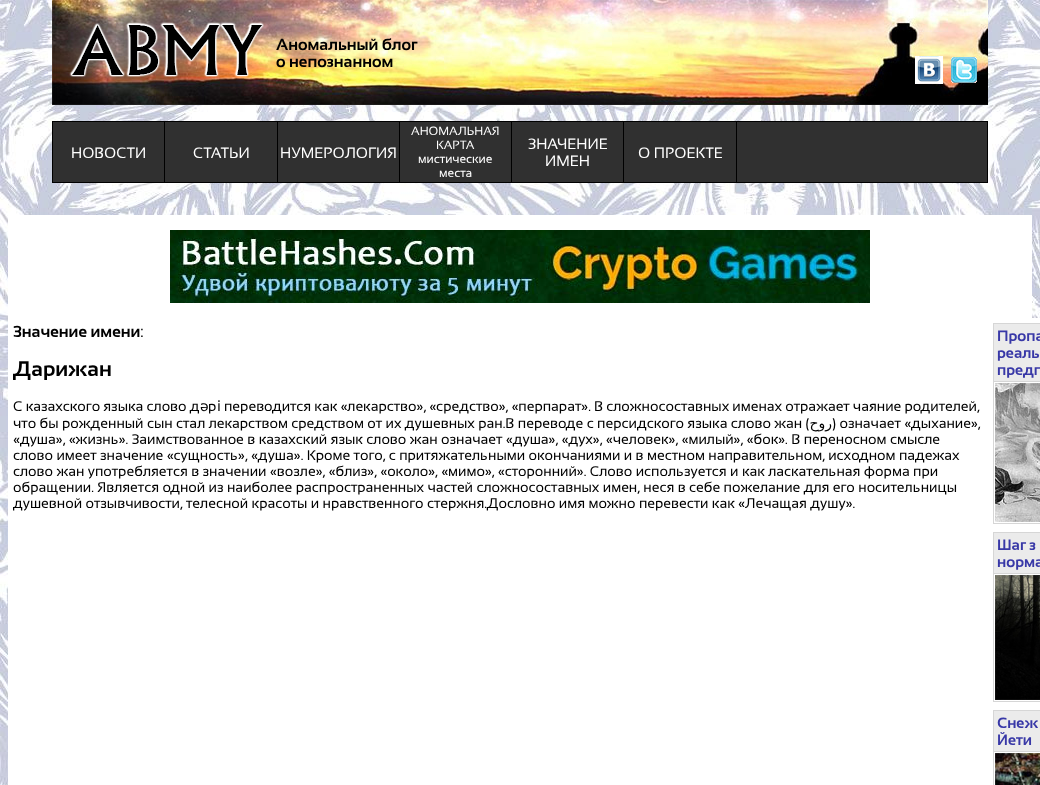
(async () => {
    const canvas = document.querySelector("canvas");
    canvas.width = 1040;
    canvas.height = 785;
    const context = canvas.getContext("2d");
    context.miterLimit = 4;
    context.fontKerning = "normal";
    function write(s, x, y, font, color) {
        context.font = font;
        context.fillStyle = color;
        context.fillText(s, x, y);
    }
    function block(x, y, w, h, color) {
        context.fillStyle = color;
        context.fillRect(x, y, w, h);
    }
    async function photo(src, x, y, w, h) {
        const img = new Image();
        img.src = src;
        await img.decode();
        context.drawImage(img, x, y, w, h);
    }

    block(0, 0, 1040, 785, "rgb(255, 255, 255)");
    await photo("media/1.png", 0, 0, 1040, 785);
    await photo("media/2.png", 52, 0, 936, 105);
    await photo("media/3.png", 69, 22, 195, 55);
    write("Аномальный блог", 276, 50, "bold 16px Sansation", "rgb(0, 0, 0)");
    write("о непознанном", 276, 67, "bold 16px Sansation", "rgb(0, 0, 0)");
    await photo("media/4.png", 915, 56, 28, 28);
    await photo("media/5.png", 951, 57, 26, 26);
    block(52, 121, 936, 62, "rgb(0, 0, 0)");
    block(53, 122, 111, 60, "rgb(48, 48, 48)");
    write("НОВОСТИ", 71, 158, "15px Sansation", "rgb(255, 255, 255)");
    block(165, 122, 112, 60, "rgb(48, 48, 48)");
    write("СТАТЬИ", 193, 158, "15px Sansation", "rgb(255, 255, 255)");
    block(278, 122, 121, 60, "rgb(48, 48, 48)");
    write("НУМЕРОЛОГИЯ", 280, 158, "15px Sansation", "rgb(255, 255, 255)");
    block(400, 122, 111, 60, "rgb(48, 48, 48)");
    write("АНОМАЛЬНАЯ", 411, 135, "12px Sansation", "rgb(255, 255, 255)");
    write("КАРТА", 436, 149, "12px Sansation", "rgb(255, 255, 255)");
    write("мистические", 418, 163, "12px Sansation", "rgb(255, 255, 255)");
    write("места", 439, 177, "12px Sansation", "rgb(255, 255, 255)");
    block(512, 122, 111, 60, "rgb(48, 48, 48)");
    write("ЗНАЧЕНИЕ", 528, 149, "15px Sansation", "rgb(255, 255, 255)");
    write("ИМЕН", 545, 166, "15px Sansation", "rgb(255, 255, 255)");
    block(624, 122, 112, 60, "rgb(48, 48, 48)");
    write("О ПРОЕКТЕ", 638, 158, "15px Sansation", "rgb(255, 255, 255)");
    block(737, 122, 250, 60, "rgb(48, 48, 48)");
    block(8, 215, 1024, 570, "rgb(255, 255, 255)");
    await photo("media/6.png", 170, 230, 700, 73);
    write("Значение имени", 13, 337, "bold 16px Sansation", "rgb(0, 0, 0)");
    write(":", 140, 337, "16px Sansation", "rgb(0, 0, 0)");
    write("Дарижан", 13, 376, "bold 21px Sansation", "rgb(0, 0, 0)");
    context.wordSpacing = "-0.25px";
    write("С казахского языка слово д", 13, 411, "14px Sansation", "rgb(0, 0, 0)");
    context.wordSpacing = "0px";
    write("ә", 200, 411, "14px DejaVu Sans", "rgb(0, 0, 0)");
    write("р", 208, 411, "14px Sansation", "rgb(0, 0, 0)");
    write("і", 217, 411, "14px DejaVu Sans", "rgb(0, 0, 0)");
    context.wordSpacing = "-0.25px";
    write("переводится как «лекарство», «средство», «перпарат». В сложносоставных именах отражает чаяние родителей,", 224, 411, "14px Sansation", "rgb(0, 0, 0)");
    context.wordSpacing = "0px";
    write("что бы рожденный сын стал лекарством средством от их душевных ран.В переводе с персидского языка слово жан (", 13, 428, "14px Sansation", "rgb(0, 0, 0)");
    context.direction = "rtl";
    write("روح", 832, 428, "14px DejaVu Sans", "rgb(0, 0, 0)");
    context.direction = "ltr";
    write(") означает «дыхание»,", 832, 428, "14px Sansation", "rgb(0, 0, 0)");
    write("«душа», «жизнь». Заимствованное в казахский язык слово жан означает «душа», «дух», «человек», «милый», «бок». В переносном смысле", 13, 444, "14px Sansation", "rgb(0, 0, 0)");
    write("слово имеет значение «сущность», «душа». Кроме того, с притяжательными окончаниями и в местном направительном, исходном падежах", 13, 460, "14px Sansation", "rgb(0, 0, 0)");
    write("слово жан употребляется в значении «возле», «близ», «около», «мимо», «сторонний». Слово используется и как ласкательная форма при", 13, 476, "14px Sansation", "rgb(0, 0, 0)");
    write("обращении. Является одной из наиболее распространенных частей сложносоставных имен, неся в себе пожелание для его носительницы", 13, 492, "14px Sansation", "rgb(0, 0, 0)");
    write("душевной отзывчивости, телесной красоты и нравственного стержня.Дословно имя можно перевести как «Лечащая душу».", 13, 508, "14px Sansation", "rgb(0, 0, 0)");
    block(1032, 318, 8, 466, "rgb(255, 255, 255)");
    block(993, 323, 47, 201, "rgb(214, 214, 214)");
    block(994, 324, 46, 57, "rgb(235, 235, 235)");
    write("Пропа", 997, 341, "bold 15px Sansation", "rgb(56, 56, 167)");
    write("реаль", 997, 358, "bold 15px Sansation", "rgb(56, 56, 167)");
    write("предп", 997, 375, "bold 15px Sansation", "rgb(56, 56, 167)");
    block(994, 382, 46, 141, "rgb(255, 255, 255)");
    await photo("media/7.png", 995, 383, 45, 139);
    block(993, 532, 47, 170, "rgb(214, 214, 214)");
    block(994, 533, 46, 40, "rgb(235, 235, 235)");
    write("Шаг з", 997, 550, "bold 15px Sansation", "rgb(56, 56, 167)");
    write("норма", 997, 567, "bold 15px Sansation", "rgb(56, 56, 167)");
    block(994, 574, 46, 127, "rgb(255, 255, 255)");
    await photo("media/8.png", 995, 575, 45, 125);
    block(993, 710, 47, 75, "rgb(214, 214, 214)");
    block(994, 711, 46, 40, "rgb(235, 235, 235)");
    write("Снеж", 997, 728, "bold 15px Sansation", "rgb(56, 56, 167)");
    write("Йети", 997, 745, "bold 15px Sansation", "rgb(56, 56, 167)");
    block(994, 752, 46, 33, "rgb(255, 255, 255)");
    await photo("media/9.png", 995, 753, 45, 32);
})();
